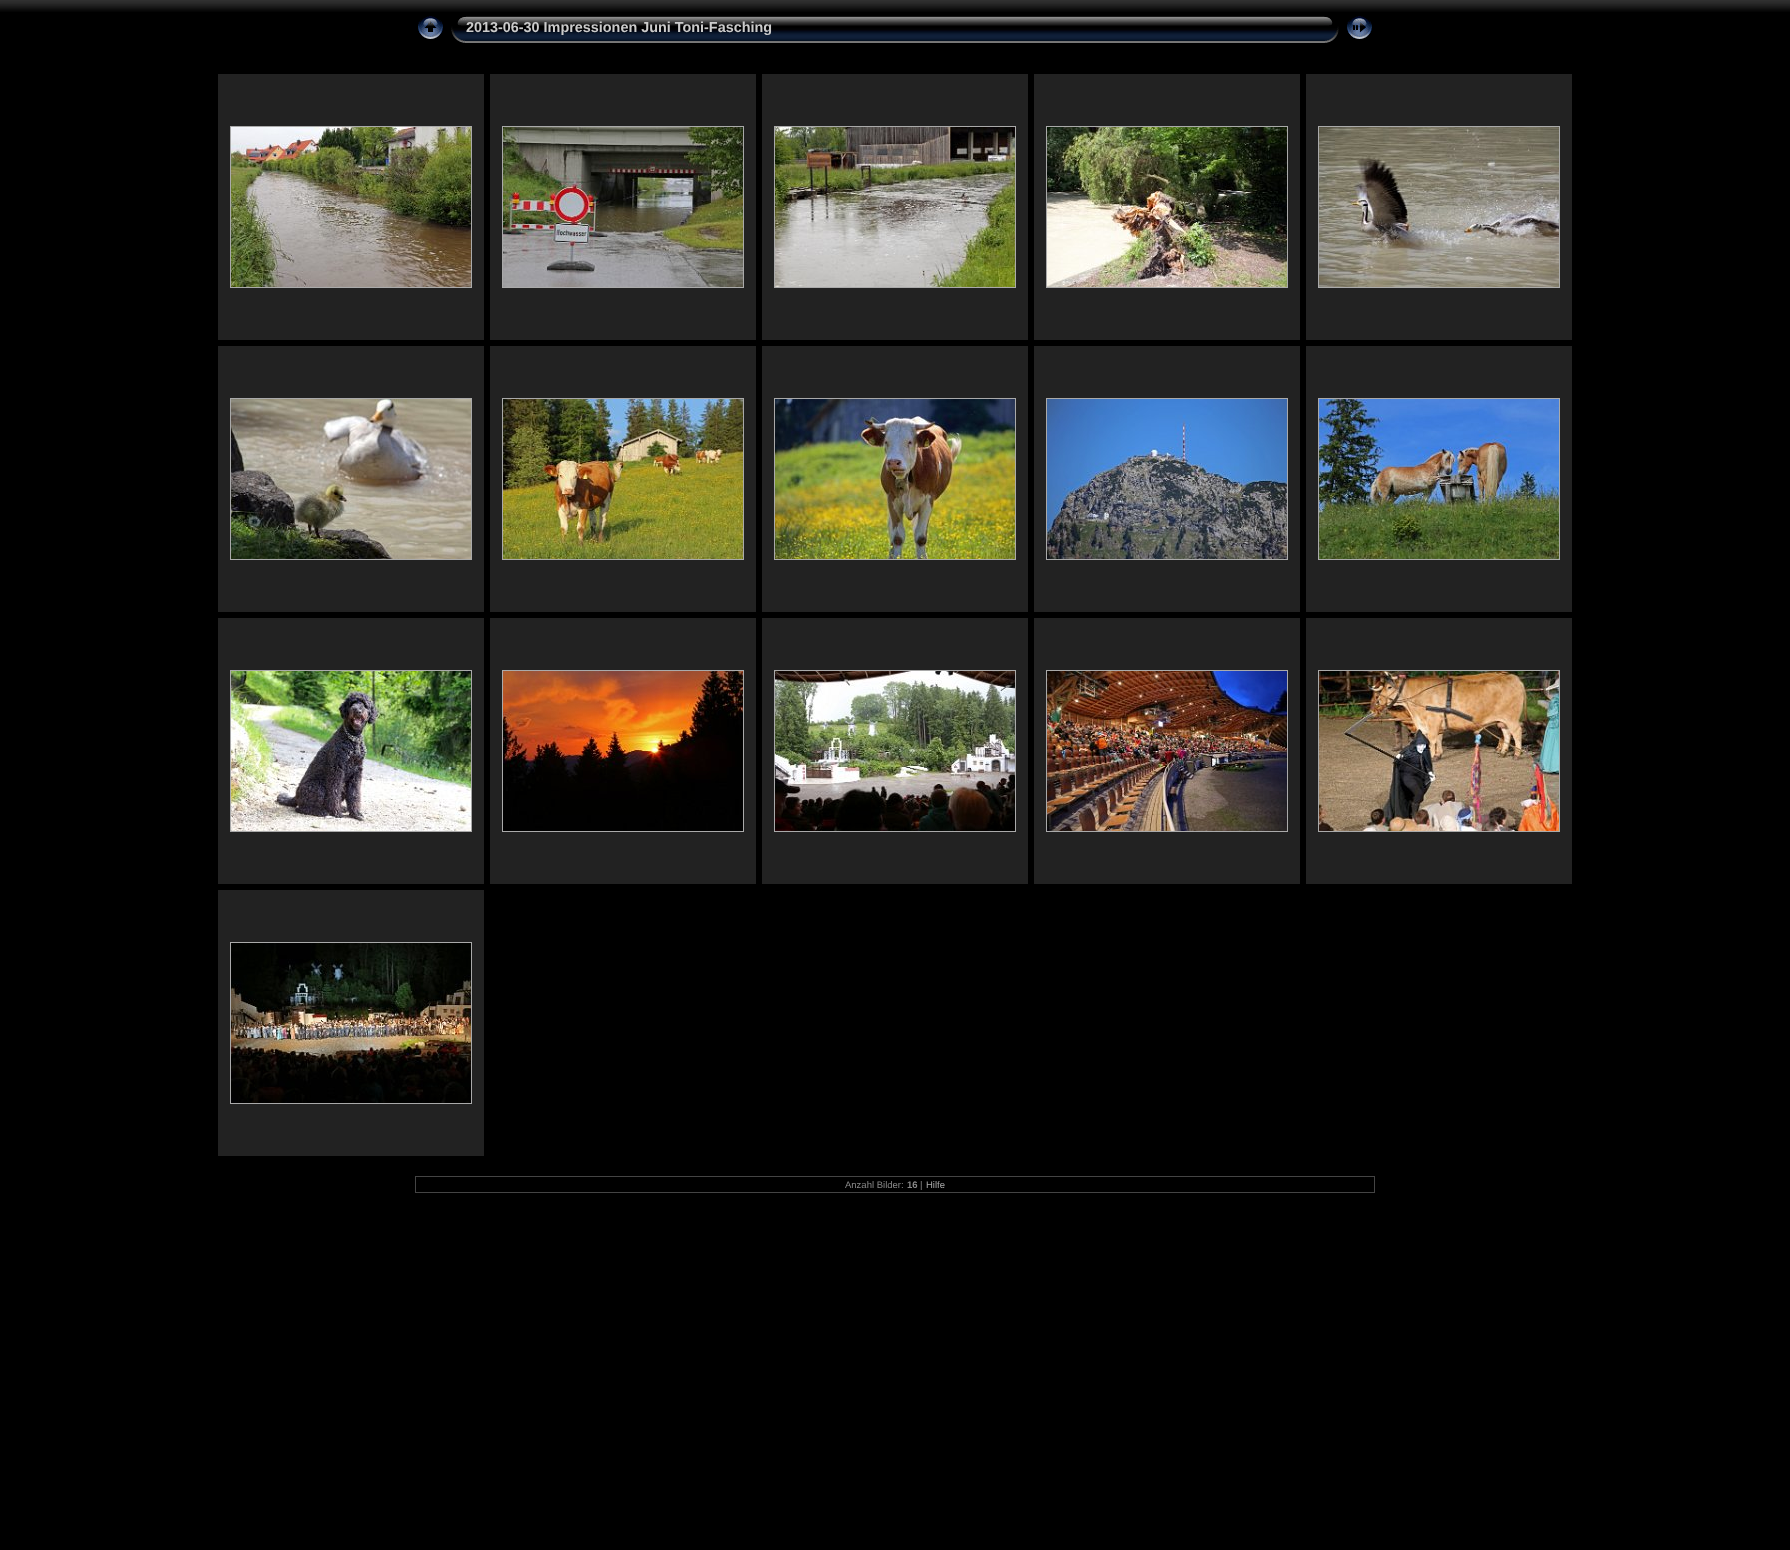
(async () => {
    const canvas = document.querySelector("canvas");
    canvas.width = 1790;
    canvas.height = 1550;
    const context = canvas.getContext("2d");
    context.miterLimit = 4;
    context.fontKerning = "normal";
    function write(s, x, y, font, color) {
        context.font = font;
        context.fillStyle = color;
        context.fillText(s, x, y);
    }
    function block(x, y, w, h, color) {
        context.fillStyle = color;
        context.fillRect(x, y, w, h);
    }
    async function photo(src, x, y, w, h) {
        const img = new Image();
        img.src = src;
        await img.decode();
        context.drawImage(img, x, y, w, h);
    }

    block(0, 0, 1790, 1550, "rgb(0, 0, 0)");
    await photo("media/1.png", 0, 0, 1790, 12);
    await photo("media/2.png", 418, 16, 25, 23);
    await photo("media/3.png", 451, 16, 15, 27);
    await photo("media/4.png", 466, 16, 858, 27);
    write("2013-06-30 Impressionen Juni Toni-Fasching", 466, 32, "bold 14.4px Liberation Sans", "rgb(204, 204, 204)");
    await photo("media/5.png", 1324, 16, 15, 27);
    await photo("media/6.png", 1347, 16, 25, 23);
    block(218, 74, 266, 266, "rgb(34, 34, 34)");
    context.strokeStyle = "rgb(170, 170, 170)";
    context.strokeRect(230.5, 126.5, 241, 161);
    await photo("media/7.png", 231, 127, 240, 160);
    block(490, 74, 266, 266, "rgb(34, 34, 34)");
    context.strokeRect(502.5, 126.5, 241, 161);
    await photo("media/8.png", 503, 127, 240, 160);
    block(762, 74, 266, 266, "rgb(34, 34, 34)");
    context.strokeRect(774.5, 126.5, 241, 161);
    await photo("media/9.png", 775, 127, 240, 160);
    block(1034, 74, 266, 266, "rgb(34, 34, 34)");
    context.strokeRect(1046.5, 126.5, 241, 161);
    await photo("media/10.png", 1047, 127, 240, 160);
    block(1306, 74, 266, 266, "rgb(34, 34, 34)");
    context.strokeRect(1318.5, 126.5, 241, 161);
    await photo("media/11.png", 1319, 127, 240, 160);
    block(218, 346, 266, 266, "rgb(34, 34, 34)");
    context.strokeRect(230.5, 398.5, 241, 161);
    await photo("media/12.png", 231, 399, 240, 160);
    block(490, 346, 266, 266, "rgb(34, 34, 34)");
    context.strokeRect(502.5, 398.5, 241, 161);
    await photo("media/13.png", 503, 399, 240, 160);
    block(762, 346, 266, 266, "rgb(34, 34, 34)");
    context.strokeRect(774.5, 398.5, 241, 161);
    await photo("media/14.png", 775, 399, 240, 160);
    block(1034, 346, 266, 266, "rgb(34, 34, 34)");
    context.strokeRect(1046.5, 398.5, 241, 161);
    await photo("media/15.png", 1047, 399, 240, 160);
    block(1306, 346, 266, 266, "rgb(34, 34, 34)");
    context.strokeRect(1318.5, 398.5, 241, 161);
    await photo("media/16.png", 1319, 399, 240, 160);
    block(218, 618, 266, 266, "rgb(34, 34, 34)");
    context.strokeRect(230.5, 670.5, 241, 161);
    await photo("media/17.png", 231, 671, 240, 160);
    block(490, 618, 266, 266, "rgb(34, 34, 34)");
    context.strokeRect(502.5, 670.5, 241, 161);
    await photo("media/18.png", 503, 671, 240, 160);
    block(762, 618, 266, 266, "rgb(34, 34, 34)");
    context.strokeRect(774.5, 670.5, 241, 161);
    await photo("media/19.png", 775, 671, 240, 160);
    block(1034, 618, 266, 266, "rgb(34, 34, 34)");
    context.strokeRect(1046.5, 670.5, 241, 161);
    await photo("media/20.png", 1047, 671, 240, 160);
    block(1306, 618, 266, 266, "rgb(34, 34, 34)");
    context.strokeRect(1318.5, 670.5, 241, 161);
    await photo("media/21.png", 1319, 671, 240, 160);
    block(218, 890, 266, 266, "rgb(34, 34, 34)");
    context.strokeRect(230.5, 942.5, 241, 161);
    await photo("media/22.png", 231, 943, 240, 160);
    block(415, 1176, 960, 1, "rgb(68, 68, 68)");
    block(1374, 1176, 1, 17, "rgb(68, 68, 68)");
    block(415, 1192, 960, 1, "rgb(68, 68, 68)");
    block(415, 1176, 1, 17, "rgb(68, 68, 68)");
    write("Anzahl Bilder:", 845, 1188, "9.5px Liberation Sans", "rgb(136, 136, 136)");
    write("16", 907, 1188, "bold 9.5px Liberation Sans", "rgb(136, 136, 136)");
    write("|", 920, 1188, "9.5px Liberation Sans", "rgb(136, 136, 136)");
    write("Hilfe", 926, 1188, "9.5px Liberation Sans", "rgb(170, 170, 170)");
})();
